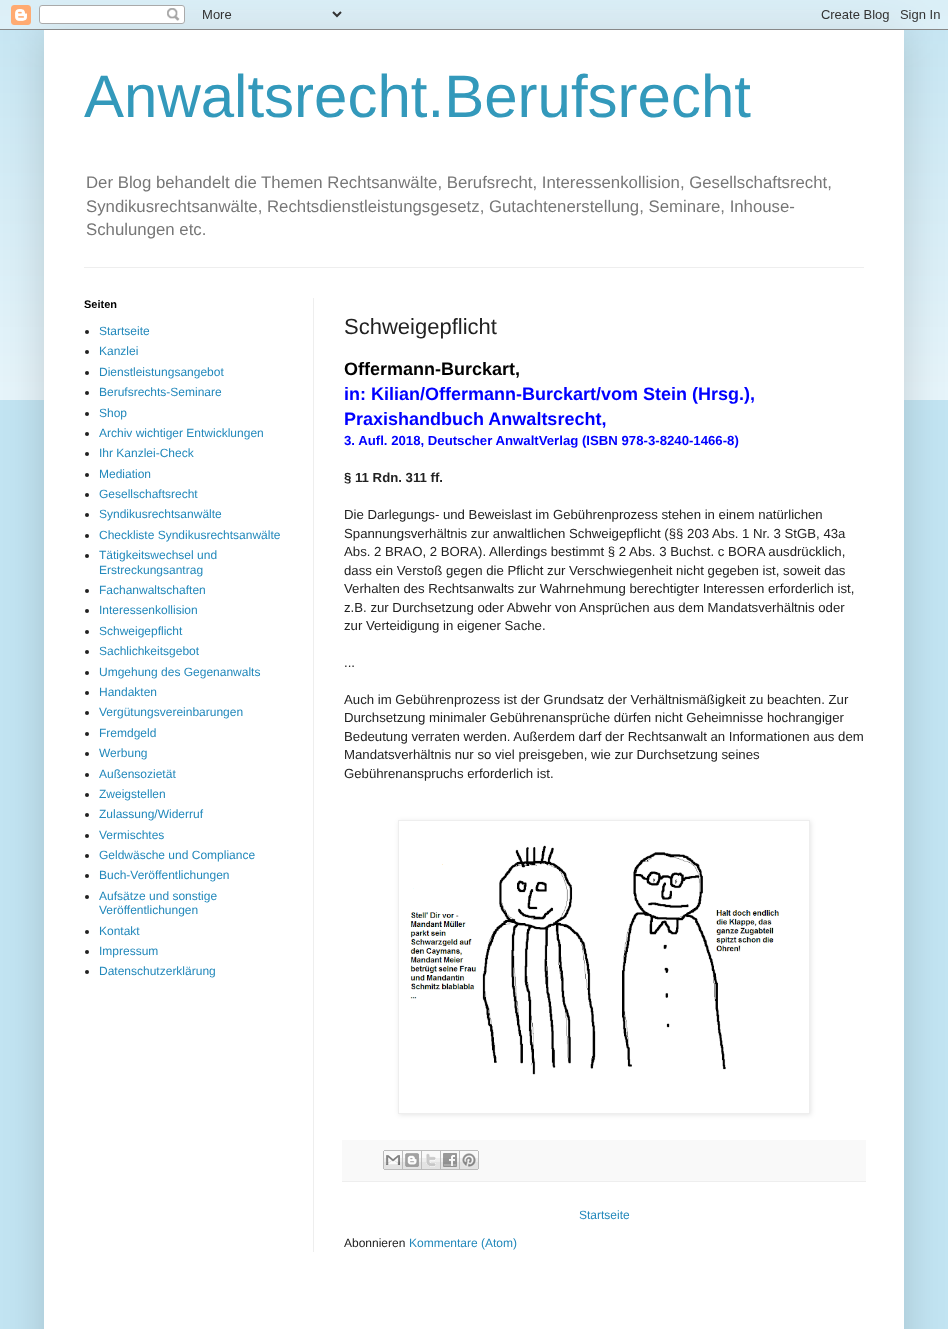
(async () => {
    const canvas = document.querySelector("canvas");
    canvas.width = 948;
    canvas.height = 1329;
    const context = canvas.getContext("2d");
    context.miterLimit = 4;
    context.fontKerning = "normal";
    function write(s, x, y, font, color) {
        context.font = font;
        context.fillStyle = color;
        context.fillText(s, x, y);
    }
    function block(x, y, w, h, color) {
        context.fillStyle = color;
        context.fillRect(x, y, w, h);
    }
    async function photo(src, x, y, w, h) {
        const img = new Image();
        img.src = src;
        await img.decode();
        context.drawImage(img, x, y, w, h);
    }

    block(0, 0, 948, 1329, "rgb(194, 228, 242)");
    await photo("media/2.png", 0, 10, 948, 390);
    context.fillStyle = "rgba(0, 0, 0, 0.15)";
    context.filter = "blur(20px)";
    context.beginPath();
    context.rect(44, 30, 860, 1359);
    context.fill();
    context.filter = "none";
    await photo("media/1.png", 0, 0, 948, 30);
    block(44, 30, 860, 1299, "rgb(255, 255, 255)");
    write("Anwaltsrecht.Berufsrecht", 84, 117, "60px Liberation Sans", "rgb(51, 153, 187)");
    write("Der Blog behandelt die Themen Rechtsanwälte, Berufsrecht, Interessenkollision, Gesellschaftsrecht,", 86, 188, "16.8px Liberation Sans", "rgb(119, 119, 119)");
    write("Syndikusrechtsanwälte, Rechtsdienstleistungsgesetz, Gutachtenerstellung, Seminare, Inhouse-", 86, 212, "16.8px Liberation Sans", "rgb(119, 119, 119)");
    write("Schulungen etc.", 86, 235, "16.8px Liberation Sans", "rgb(119, 119, 119)");
    block(84, 267, 780, 1, "rgb(238, 238, 238)");
    block(313, 298, 1, 954, "rgb(238, 238, 238)");
    write("Seiten", 84, 308, "bold 11px Liberation Sans", "rgb(0, 0, 0)");
    context.fillStyle = "rgb(34, 34, 34)";
    context.beginPath();
    context.arc(87, 332, 2, 0, Math.PI * 2);
    context.fill();
    write("Startseite", 99, 335, "12px Liberation Sans", "rgb(34, 136, 187)");
    context.fillStyle = "rgb(34, 34, 34)";
    context.beginPath();
    context.arc(87, 352, 2, 0, Math.PI * 2);
    context.fill();
    write("Kanzlei", 99, 355, "12px Liberation Sans", "rgb(34, 136, 187)");
    context.fillStyle = "rgb(34, 34, 34)";
    context.beginPath();
    context.arc(87, 373, 2, 0, Math.PI * 2);
    context.fill();
    write("Dienstleistungsangebot", 99, 376, "12px Liberation Sans", "rgb(34, 136, 187)");
    context.fillStyle = "rgb(34, 34, 34)";
    context.beginPath();
    context.arc(87, 393, 2, 0, Math.PI * 2);
    context.fill();
    write("Berufsrechts-Seminare", 99, 396, "12px Liberation Sans", "rgb(34, 136, 187)");
    context.fillStyle = "rgb(34, 34, 34)";
    context.beginPath();
    context.arc(87, 414, 2, 0, Math.PI * 2);
    context.fill();
    write("Shop", 99, 417, "12px Liberation Sans", "rgb(34, 136, 187)");
    context.fillStyle = "rgb(34, 34, 34)";
    context.beginPath();
    context.arc(87, 434, 2, 0, Math.PI * 2);
    context.fill();
    write("Archiv wichtiger Entwicklungen", 99, 437, "12px Liberation Sans", "rgb(34, 136, 187)");
    context.fillStyle = "rgb(34, 34, 34)";
    context.beginPath();
    context.arc(87, 454, 2, 0, Math.PI * 2);
    context.fill();
    write("Ihr Kanzlei-Check", 99, 457, "12px Liberation Sans", "rgb(34, 136, 187)");
    context.fillStyle = "rgb(34, 34, 34)";
    context.beginPath();
    context.arc(87, 475, 2, 0, Math.PI * 2);
    context.fill();
    write("Mediation", 99, 478, "12px Liberation Sans", "rgb(34, 136, 187)");
    context.fillStyle = "rgb(34, 34, 34)";
    context.beginPath();
    context.arc(87, 495, 2, 0, Math.PI * 2);
    context.fill();
    write("Gesellschaftsrecht", 99, 498, "12px Liberation Sans", "rgb(34, 136, 187)");
    context.fillStyle = "rgb(34, 34, 34)";
    context.beginPath();
    context.arc(87, 515, 2, 0, Math.PI * 2);
    context.fill();
    write("Syndikusrechtsanwälte", 99, 518, "12px Liberation Sans", "rgb(34, 136, 187)");
    context.fillStyle = "rgb(34, 34, 34)";
    context.beginPath();
    context.arc(87, 536, 2, 0, Math.PI * 2);
    context.fill();
    write("Checkliste Syndikusrechtsanwälte", 99, 539, "12px Liberation Sans", "rgb(34, 136, 187)");
    context.fillStyle = "rgb(34, 34, 34)";
    context.beginPath();
    context.arc(87, 556, 2, 0, Math.PI * 2);
    context.fill();
    write("Tätigkeitswechsel und", 99, 559, "12px Liberation Sans", "rgb(34, 136, 187)");
    write("Erstreckungsantrag", 99, 574, "12px Liberation Sans", "rgb(34, 136, 187)");
    context.fillStyle = "rgb(34, 34, 34)";
    context.beginPath();
    context.arc(87, 591, 2, 0, Math.PI * 2);
    context.fill();
    write("Fachanwaltschaften", 99, 594, "12px Liberation Sans", "rgb(34, 136, 187)");
    context.fillStyle = "rgb(34, 34, 34)";
    context.beginPath();
    context.arc(87, 611, 2, 0, Math.PI * 2);
    context.fill();
    write("Interessenkollision", 99, 614, "12px Liberation Sans", "rgb(34, 136, 187)");
    context.fillStyle = "rgb(34, 34, 34)";
    context.beginPath();
    context.arc(87, 632, 2, 0, Math.PI * 2);
    context.fill();
    write("Schweigepflicht", 99, 635, "12px Liberation Sans", "rgb(34, 136, 187)");
    context.fillStyle = "rgb(34, 34, 34)";
    context.beginPath();
    context.arc(87, 652, 2, 0, Math.PI * 2);
    context.fill();
    write("Sachlichkeitsgebot", 99, 655, "12px Liberation Sans", "rgb(34, 136, 187)");
    context.fillStyle = "rgb(34, 34, 34)";
    context.beginPath();
    context.arc(87, 673, 2, 0, Math.PI * 2);
    context.fill();
    write("Umgehung des Gegenanwalts", 99, 676, "12px Liberation Sans", "rgb(34, 136, 187)");
    context.fillStyle = "rgb(34, 34, 34)";
    context.beginPath();
    context.arc(87, 693, 2, 0, Math.PI * 2);
    context.fill();
    write("Handakten", 99, 696, "12px Liberation Sans", "rgb(34, 136, 187)");
    context.fillStyle = "rgb(34, 34, 34)";
    context.beginPath();
    context.arc(87, 713, 2, 0, Math.PI * 2);
    context.fill();
    write("Vergütungsvereinbarungen", 99, 716, "12px Liberation Sans", "rgb(34, 136, 187)");
    context.fillStyle = "rgb(34, 34, 34)";
    context.beginPath();
    context.arc(87, 734, 2, 0, Math.PI * 2);
    context.fill();
    write("Fremdgeld", 99, 737, "12px Liberation Sans", "rgb(34, 136, 187)");
    context.fillStyle = "rgb(34, 34, 34)";
    context.beginPath();
    context.arc(87, 754, 2, 0, Math.PI * 2);
    context.fill();
    write("Werbung", 99, 757, "12px Liberation Sans", "rgb(34, 136, 187)");
    context.fillStyle = "rgb(34, 34, 34)";
    context.beginPath();
    context.arc(87, 775, 2, 0, Math.PI * 2);
    context.fill();
    write("Außensozietät", 99, 778, "12px Liberation Sans", "rgb(34, 136, 187)");
    context.fillStyle = "rgb(34, 34, 34)";
    context.beginPath();
    context.arc(87, 795, 2, 0, Math.PI * 2);
    context.fill();
    write("Zweigstellen", 99, 798, "12px Liberation Sans", "rgb(34, 136, 187)");
    context.fillStyle = "rgb(34, 34, 34)";
    context.beginPath();
    context.arc(87, 815, 2, 0, Math.PI * 2);
    context.fill();
    write("Zulassung/Widerruf", 99, 818, "12px Liberation Sans", "rgb(34, 136, 187)");
    context.fillStyle = "rgb(34, 34, 34)";
    context.beginPath();
    context.arc(87, 836, 2, 0, Math.PI * 2);
    context.fill();
    write("Vermischtes", 99, 839, "12px Liberation Sans", "rgb(34, 136, 187)");
    context.fillStyle = "rgb(34, 34, 34)";
    context.beginPath();
    context.arc(87, 856, 2, 0, Math.PI * 2);
    context.fill();
    write("Geldwäsche und Compliance", 99, 859, "12px Liberation Sans", "rgb(34, 136, 187)");
    context.fillStyle = "rgb(34, 34, 34)";
    context.beginPath();
    context.arc(87, 876, 2, 0, Math.PI * 2);
    context.fill();
    write("Buch-Veröffentlichungen", 99, 879, "12px Liberation Sans", "rgb(34, 136, 187)");
    context.fillStyle = "rgb(34, 34, 34)";
    context.beginPath();
    context.arc(87, 897, 2, 0, Math.PI * 2);
    context.fill();
    write("Aufsätze und sonstige", 99, 900, "12px Liberation Sans", "rgb(34, 136, 187)");
    write("Veröffentlichungen", 99, 914, "12px Liberation Sans", "rgb(34, 136, 187)");
    context.fillStyle = "rgb(34, 34, 34)";
    context.beginPath();
    context.arc(87, 932, 2, 0, Math.PI * 2);
    context.fill();
    write("Kontakt", 99, 935, "12px Liberation Sans", "rgb(34, 136, 187)");
    context.fillStyle = "rgb(34, 34, 34)";
    context.beginPath();
    context.arc(87, 952, 2, 0, Math.PI * 2);
    context.fill();
    write("Impressum", 99, 955, "12px Liberation Sans", "rgb(34, 136, 187)");
    context.fillStyle = "rgb(34, 34, 34)";
    context.beginPath();
    context.arc(87, 972, 2, 0, Math.PI * 2);
    context.fill();
    write("Datenschutzerklärung", 99, 975, "12px Liberation Sans", "rgb(34, 136, 187)");
    write("Schweigepflicht", 344, 334, "22px Liberation Sans", "rgb(34, 34, 34)");
    write("Offermann-Burckart,", 344, 375, "bold 18px Liberation Sans", "rgb(0, 0, 0)");
    write("in: Kilian/Offermann-Burckart/vom Stein (Hrsg.),", 344, 400, "bold 18px Liberation Sans", "rgb(0, 0, 255)");
    write("Praxishandbuch Anwaltsrecht,", 344, 425, "bold 18px Liberation Sans", "rgb(0, 0, 255)");
    write("3. Aufl. 2018, Deutscher AnwaltVerlag (ISBN 978-3-8240-1466-8)", 344, 445, "bold 13.2px Liberation Sans", "rgb(0, 0, 255)");
    write("§ 11 Rdn. 311 ff.", 344, 482, "bold 13.2px Liberation Sans", "rgb(34, 34, 34)");
    write("Die Darlegungs- und Beweislast im Gebührenprozess stehen in einem natürlichen", 344, 519, "13.2px Liberation Sans", "rgb(34, 34, 34)");
    write("Spannungsverhältnis zur anwaltlichen Schweigepflicht (§§ 203 Abs. 1 Nr. 3 StGB, 43a", 344, 538, "13.2px Liberation Sans", "rgb(34, 34, 34)");
    write("Abs. 2 BRAO, 2 BORA). Allerdings bestimmt § 2 Abs. 3 Buchst. c BORA ausdrücklich,", 344, 556, "13.2px Liberation Sans", "rgb(34, 34, 34)");
    write("dass ein Verstoß gegen die Pflicht zur Verschwiegenheit nicht gegeben ist, soweit das", 344, 575, "13.2px Liberation Sans", "rgb(34, 34, 34)");
    write("Verhalten des Rechtsanwalts zur Wahrnehmung berechtigter Interessen erforderlich ist,", 344, 593, "13.2px Liberation Sans", "rgb(34, 34, 34)");
    write("z.B. zur Durchsetzung oder Abwehr von Ansprüchen aus dem Mandatsverhältnis oder", 344, 612, "13.2px Liberation Sans", "rgb(34, 34, 34)");
    write("zur Verteidigung in eigener Sache.", 344, 630, "13.2px Liberation Sans", "rgb(34, 34, 34)");
    write("...", 344, 667, "13.2px Liberation Sans", "rgb(34, 34, 34)");
    write("Auch im Gebührenprozess ist der Grundsatz der Verhältnismäßigkeit zu beachten. Zur", 344, 704, "13.2px Liberation Sans", "rgb(34, 34, 34)");
    write("Durchsetzung minimaler Gebührenansprüche dürfen nicht Geheimnisse hochrangiger", 344, 722, "13.2px Liberation Sans", "rgb(34, 34, 34)");
    write("Bedeutung verraten werden. Außerdem darf der Rechtsanwalt an Informationen aus dem", 344, 741, "13.2px Liberation Sans", "rgb(34, 34, 34)");
    write("Mandatsverhältnis nur so viel preisgeben, wie zur Durchsetzung seines", 344, 759, "13.2px Liberation Sans", "rgb(34, 34, 34)");
    write("Gebührenanspruchs erforderlich ist.", 344, 778, "13.2px Liberation Sans", "rgb(34, 34, 34)");
    context.save();
    context.beginPath();
    context.moveTo(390, 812);
    context.lineTo(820, 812);
    context.lineTo(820, 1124);
    context.lineTo(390, 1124);
    context.closePath();
    context.moveTo(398, 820);
    context.lineTo(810, 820);
    context.lineTo(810, 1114);
    context.lineTo(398, 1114);
    context.closePath();
    context.clip("evenodd");
    context.fillStyle = "rgba(0, 0, 0, 0.1)";
    context.filter = "blur(2.5px)";
    context.beginPath();
    context.rect(399, 821, 412, 294);
    context.fill();
    context.filter = "none";
    context.restore();
    context.strokeStyle = "rgb(238, 238, 238)";
    context.strokeRect(398.5, 820.5, 411, 293);
    await photo("media/3.png", 410, 845, 369, 230);
    block(342, 1140, 524, 41, "rgb(249, 249, 249)");
    block(342, 1181, 524, 1, "rgb(238, 238, 238)");
    await photo("media/4.png", 383, 1150, 20, 20);
    await photo("media/5.png", 403, 1150, 19, 20);
    await photo("media/6.png", 422, 1150, 19, 20);
    await photo("media/7.png", 441, 1150, 19, 20);
    await photo("media/8.png", 460, 1150, 19, 20);
    write("Startseite", 579, 1219, "12px Liberation Sans", "rgb(34, 136, 187)");
    write("Abonnieren", 344, 1247, "12px Liberation Sans", "rgb(34, 34, 34)");
    write("Kommentare (Atom)", 409, 1247, "12px Liberation Sans", "rgb(34, 136, 187)");
})();
